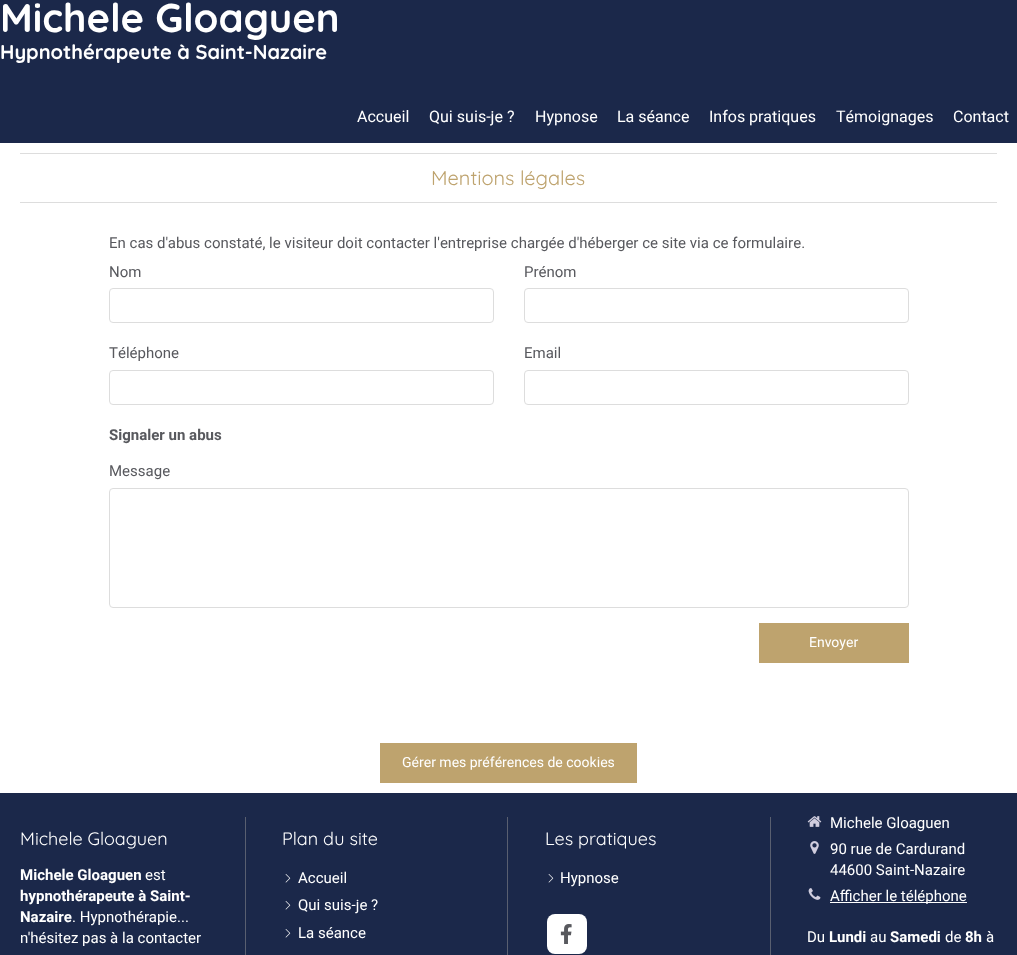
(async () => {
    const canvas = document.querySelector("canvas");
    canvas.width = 1017;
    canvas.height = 955;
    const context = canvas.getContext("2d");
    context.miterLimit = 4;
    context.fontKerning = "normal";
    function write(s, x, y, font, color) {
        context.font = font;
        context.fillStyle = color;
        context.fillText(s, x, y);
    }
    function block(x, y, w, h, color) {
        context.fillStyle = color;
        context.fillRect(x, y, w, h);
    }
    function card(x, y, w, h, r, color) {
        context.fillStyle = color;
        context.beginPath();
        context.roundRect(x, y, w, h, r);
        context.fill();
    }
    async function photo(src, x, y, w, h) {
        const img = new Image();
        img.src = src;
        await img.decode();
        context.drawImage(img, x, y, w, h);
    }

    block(0, 0, 1017, 955, "rgb(27, 40, 74)");
    write("Michele Gloaguen", 0, 32, "bold 40px Quicksand", "rgb(255, 255, 255)");
    write("Hypnothérapeute à Saint-Nazaire", 0, 59, "bold 20px Quicksand", "rgb(255, 255, 255)");
    write("Accueil", 357, 122, "16px Heebo", "rgb(255, 255, 255)");
    write("Qui suis-je ?", 429, 122, "16px Heebo", "rgb(255, 255, 255)");
    write("Hypnose", 535, 122, "16px Heebo", "rgb(255, 255, 255)");
    write("La séance", 617, 122, "16px Heebo", "rgb(255, 255, 255)");
    write("Infos pratiques", 709, 122, "16px Heebo", "rgb(255, 255, 255)");
    write("Témoignages", 836, 122, "16px Heebo", "rgb(255, 255, 255)");
    write("Contact", 953, 122, "16px Heebo", "rgb(255, 255, 255)");
    block(0, 143, 1017, 650, "rgb(255, 255, 255)");
    block(20, 153, 977, 1, "rgb(221, 221, 221)");
    block(20, 202, 977, 1, "rgb(221, 221, 221)");
    write("Mentions légales", 431, 185, "20px Quicksand", "rgb(190, 163, 110)");
    write("En cas d'abus constaté, le visiteur doit contacter l'entreprise chargée d'héberger ce site via ce formulaire.", 109, 248, "15px Heebo", "rgb(88, 89, 94)");
    write("Nom", 109, 277, "15px Heebo", "rgb(88, 89, 94)");
    context.beginPath();
    context.roundRect(109.5, 288.5, 384, 34, 3.5);
    context.strokeStyle = "rgb(221, 221, 221)";
    context.stroke();
    write("Prénom", 524, 277, "15px Heebo", "rgb(88, 89, 94)");
    context.beginPath();
    context.roundRect(524.5, 288.5, 384, 34, 3.5);
    context.stroke();
    write("Téléphone", 109, 358, "15px Heebo", "rgb(88, 89, 94)");
    context.beginPath();
    context.roundRect(109.5, 370.5, 384, 34, 3.5);
    context.stroke();
    write("Email", 524, 358, "15px Heebo", "rgb(88, 89, 94)");
    context.beginPath();
    context.roundRect(524.5, 370.5, 384, 34, 3.5);
    context.stroke();
    write("Signaler un abus", 109, 440, "bold 15px Heebo", "rgb(88, 89, 94)");
    write("Message", 109, 476, "15px Heebo", "rgb(88, 89, 94)");
    context.beginPath();
    context.roundRect(109.5, 488.5, 799, 119, 3.5);
    context.stroke();
    block(759, 623, 150, 40, "rgb(190, 163, 110)");
    write("Envoyer", 809, 647, "14px Heebo", "rgb(255, 255, 255)");
    block(380, 743, 257, 40, "rgb(190, 163, 110)");
    write("Gérer mes préférences de cookies", 402, 767, "14px Heebo", "rgb(255, 255, 255)");
    write("Michele Gloaguen", 20, 845, "18px Quicksand", "rgb(255, 255, 255)");
    write("Michele Gloaguen", 20, 880, "bold 15px Heebo", "rgb(255, 255, 255)");
    write("est", 145, 880, "15px Heebo", "rgb(255, 255, 255)");
    write("hypnothérapeute à Saint-", 20, 901, "bold 15px Heebo", "rgb(255, 255, 255)");
    write("Nazaire", 20, 922, "bold 15px Heebo", "rgb(255, 255, 255)");
    write(". Hypnothérapie...", 72, 922, "15px Heebo", "rgb(255, 255, 255)");
    write("n'hésitez pas à la contacter", 20, 943, "15px Heebo", "rgb(255, 255, 255)");
    block(245, 817, 1, 138, "rgb(89, 95, 112)");
    write("Plan du site", 282, 845, "18px Quicksand", "rgb(255, 255, 255)");
    await photo("media/1.png", 285, 874, 6, 9);
    write("Accueil", 298, 883, "15px Heebo", "rgb(255, 255, 255)");
    await photo("media/1.png", 285, 901, 6, 9);
    write("Qui suis-je ?", 298, 910, "15px Heebo", "rgb(255, 255, 255)");
    await photo("media/1.png", 285, 929, 6, 9);
    write("La séance", 298, 938, "15px Heebo", "rgb(255, 255, 255)");
    block(507, 817, 1, 138, "rgb(89, 95, 112)");
    write("Les pratiques", 545, 845, "18px Quicksand", "rgb(255, 255, 255)");
    await photo("media/1.png", 548, 874, 6, 9);
    write("Hypnose", 560, 883, "15px Heebo", "rgb(255, 255, 255)");
    card(547, 914, 40, 40, 8, "rgb(255, 255, 255)");
    await photo("media/2.png", 560, 924, 12, 20);
    block(770, 817, 1, 138, "rgb(89, 95, 112)");
    await photo("media/3.png", 807, 816, 15, 11);
    write("Michele Gloaguen", 830, 828, "15px Heebo", "rgb(255, 255, 255)");
    await photo("media/4.png", 810, 841, 9, 13);
    write("90 rue de Cardurand", 830, 854, "15px Heebo", "rgb(255, 255, 255)");
    write("44600 Saint-Nazaire", 830, 875, "15px Heebo", "rgb(255, 255, 255)");
    await photo("media/5.png", 808, 888, 13, 12);
    block(830, 902, 137, 1, "rgb(255, 255, 255)");
    write("Afficher le téléphone", 830, 901, "15px Heebo", "rgb(255, 255, 255)");
    write("Du", 807, 942, "15px Heebo", "rgb(255, 255, 255)");
    write("Lundi", 829, 942, "bold 15px Heebo", "rgb(255, 255, 255)");
    write("au", 870, 942, "15px Heebo", "rgb(255, 255, 255)");
    write("Samedi", 890, 942, "bold 15px Heebo", "rgb(255, 255, 255)");
    write("de", 945, 942, "15px Heebo", "rgb(255, 255, 255)");
    write("8h", 965, 942, "bold 15px Heebo", "rgb(255, 255, 255)");
    write("à", 986, 942, "15px Heebo", "rgb(255, 255, 255)");
})();
